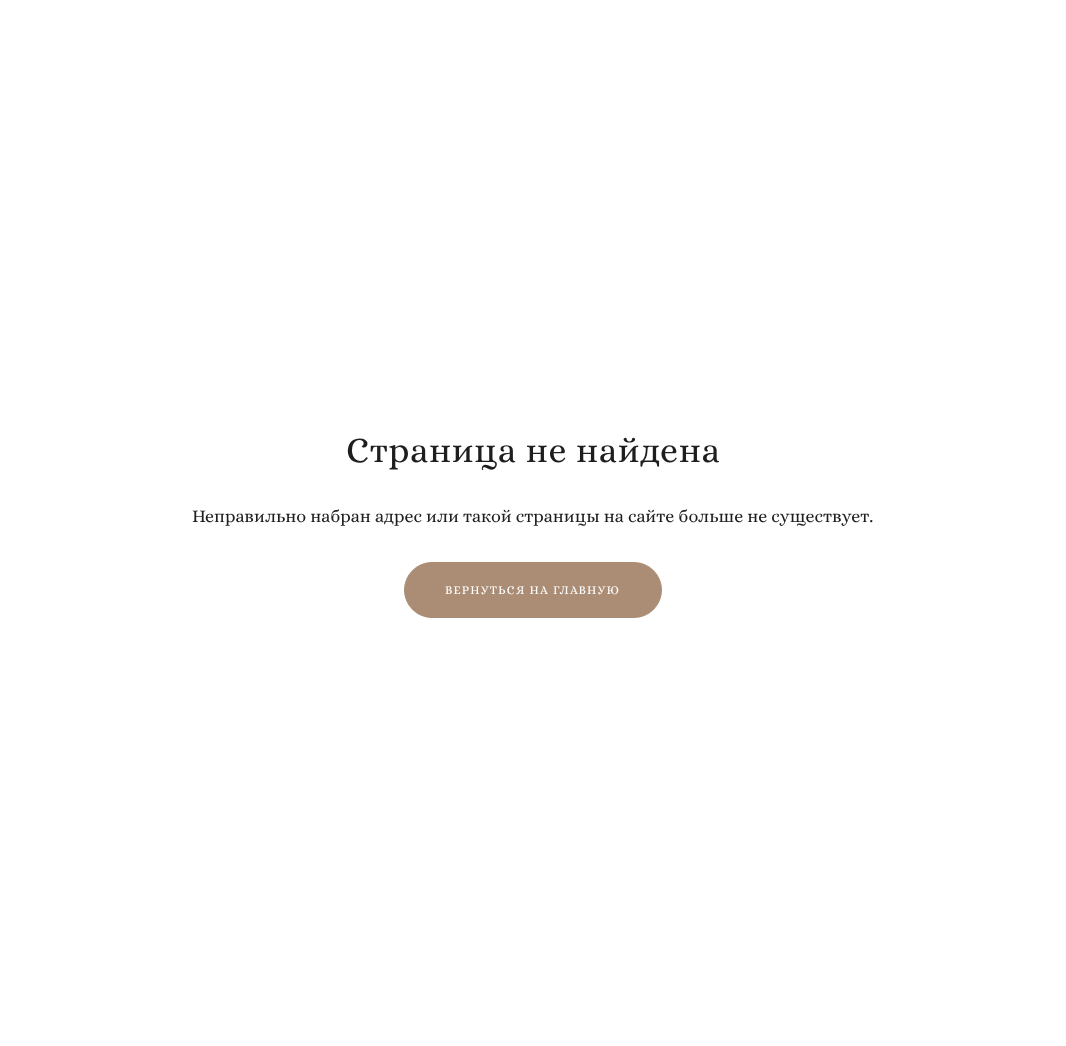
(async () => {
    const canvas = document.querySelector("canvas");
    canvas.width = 1066;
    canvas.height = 1046;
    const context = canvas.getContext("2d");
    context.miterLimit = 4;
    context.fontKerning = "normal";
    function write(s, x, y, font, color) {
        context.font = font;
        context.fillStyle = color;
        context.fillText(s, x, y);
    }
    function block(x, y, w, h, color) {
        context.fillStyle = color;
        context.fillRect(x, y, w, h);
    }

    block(0, 0, 1066, 1046, "rgb(255, 255, 255)");
    context.letterSpacing = "0.75px";
    write("Страница не найдена", 346, 462, "36px Alice", "rgb(30, 30, 30)");
    context.letterSpacing = "0px";
    write("Неправильно набран адрес или такой страницы на сайте больше не существует.", 192, 522, "18px Alice", "rgb(30, 30, 30)");
    context.fillStyle = "rgb(170, 141, 116)";
    context.beginPath();
    context.roundRect(404.5, 562.5, 257, 55, 27.5);
    context.fill();
    context.strokeStyle = "rgb(170, 141, 116)";
    context.stroke();
    context.letterSpacing = "1.2px";
    write("ВЕРНУТЬСЯ НА ГЛАВНУЮ", 445, 594, "12px Alice", "rgb(255, 255, 255)");
})();
